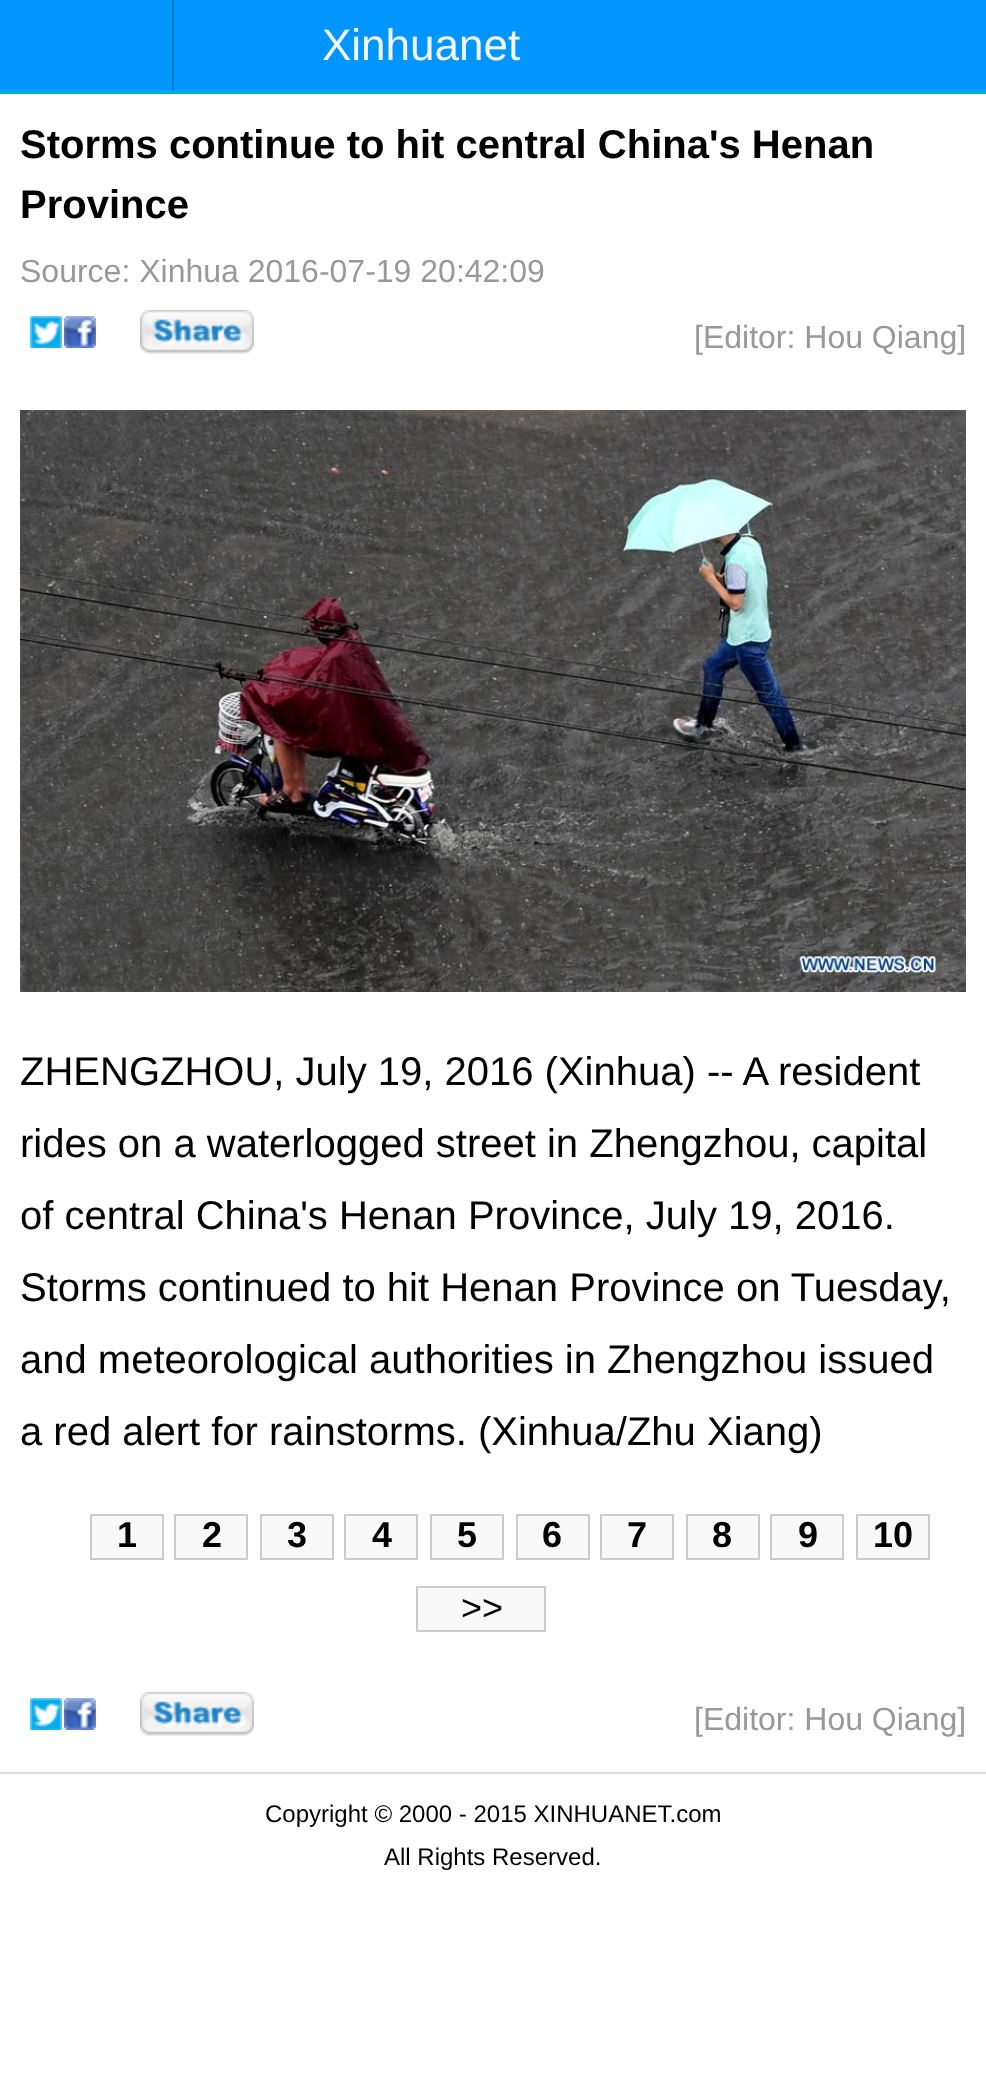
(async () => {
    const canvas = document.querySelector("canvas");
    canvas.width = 986;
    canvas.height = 2089;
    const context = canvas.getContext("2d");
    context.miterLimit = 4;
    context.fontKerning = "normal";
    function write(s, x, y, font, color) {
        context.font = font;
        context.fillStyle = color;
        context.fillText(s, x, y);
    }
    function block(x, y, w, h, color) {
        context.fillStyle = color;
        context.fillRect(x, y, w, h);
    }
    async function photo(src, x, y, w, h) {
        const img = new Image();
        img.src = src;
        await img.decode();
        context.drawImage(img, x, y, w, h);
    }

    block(0, 0, 986, 2089, "rgb(255, 255, 255)");
    block(0, 0, 986, 90, "rgb(1, 149, 255)");
    block(0, 90, 986, 4, "rgb(0, 171, 231)");
    block(172, 0, 2, 90, "rgb(0, 121, 200)");
    write("Xinhuanet", 322, 60, "44px Liberation Sans", "rgb(244, 247, 252)");
    write("Storms continue to hit central China's Henan", 20, 158, "bold 40px Liberation Sans", "rgb(0, 0, 0)");
    write("Province", 20, 218, "bold 40px Liberation Sans", "rgb(0, 0, 0)");
    write("Source: Xinhua 2016-07-19 20:42:09", 20, 282, "32px Liberation Sans", "rgb(153, 153, 153)");
    await photo("media/1.png", 30, 316, 32, 32);
    await photo("media/2.png", 64, 316, 32, 32);
    await photo("media/3.png", 140, 310, 114, 44);
    write("[Editor: Hou Qiang]", 694, 348, "32px Liberation Sans", "rgb(153, 153, 153)");
    await photo("media/4.png", 20, 410, 946, 582);
    write("ZHENGZHOU, July 19, 2016 (Xinhua) -- A resident", 20, 1085, "40px Liberation Sans", "rgb(0, 0, 0)");
    write("rides on a waterlogged street in Zhengzhou, capital", 20, 1157, "40px Liberation Sans", "rgb(0, 0, 0)");
    write("of central China's Henan Province, July 19, 2016.", 20, 1229, "40px Liberation Sans", "rgb(0, 0, 0)");
    write("Storms continued to hit Henan Province on Tuesday,", 20, 1301, "40px Liberation Sans", "rgb(0, 0, 0)");
    write("and meteorological authorities in Zhengzhou issued", 20, 1373, "40px Liberation Sans", "rgb(0, 0, 0)");
    write("a red alert for rainstorms. (Xinhua/Zhu Xiang)", 20, 1445, "40px Liberation Sans", "rgb(0, 0, 0)");
    context.fillStyle = "rgb(249, 249, 249)";
    context.beginPath();
    context.rect(91, 1515, 72, 44);
    context.fill();
    context.strokeStyle = "rgb(204, 204, 204)";
    context.lineWidth = 2;
    context.stroke();
    write("1", 117, 1547, "bold 36px Liberation Sans", "rgb(0, 0, 0)");
    context.fillStyle = "rgb(249, 249, 249)";
    context.beginPath();
    context.rect(175, 1515, 72, 44);
    context.fill();
    context.stroke();
    write("2", 202, 1547, "bold 36px Liberation Sans", "rgb(0, 0, 0)");
    context.fillStyle = "rgb(249, 249, 249)";
    context.beginPath();
    context.rect(261, 1515, 72, 44);
    context.fill();
    context.stroke();
    write("3", 287, 1547, "bold 36px Liberation Sans", "rgb(0, 0, 0)");
    context.fillStyle = "rgb(249, 249, 249)";
    context.beginPath();
    context.rect(345, 1515, 72, 44);
    context.fill();
    context.stroke();
    write("4", 372, 1547, "bold 36px Liberation Sans", "rgb(0, 0, 0)");
    context.fillStyle = "rgb(249, 249, 249)";
    context.beginPath();
    context.rect(431, 1515, 72, 44);
    context.fill();
    context.stroke();
    write("5", 457, 1547, "bold 36px Liberation Sans", "rgb(0, 0, 0)");
    context.fillStyle = "rgb(249, 249, 249)";
    context.beginPath();
    context.rect(517, 1515, 72, 44);
    context.fill();
    context.stroke();
    write("6", 542, 1547, "bold 36px Liberation Sans", "rgb(0, 0, 0)");
    context.fillStyle = "rgb(249, 249, 249)";
    context.beginPath();
    context.rect(601, 1515, 72, 44);
    context.fill();
    context.stroke();
    write("7", 627, 1547, "bold 36px Liberation Sans", "rgb(0, 0, 0)");
    context.fillStyle = "rgb(249, 249, 249)";
    context.beginPath();
    context.rect(687, 1515, 72, 44);
    context.fill();
    context.stroke();
    write("8", 712, 1547, "bold 36px Liberation Sans", "rgb(0, 0, 0)");
    context.fillStyle = "rgb(249, 249, 249)";
    context.beginPath();
    context.rect(771, 1515, 72, 44);
    context.fill();
    context.stroke();
    write("9", 798, 1547, "bold 36px Liberation Sans", "rgb(0, 0, 0)");
    context.fillStyle = "rgb(249, 249, 249)";
    context.beginPath();
    context.rect(857, 1515, 72, 44);
    context.fill();
    context.stroke();
    write("10", 873, 1547, "bold 36px Liberation Sans", "rgb(0, 0, 0)");
    context.fillStyle = "rgb(249, 249, 249)";
    context.beginPath();
    context.rect(417, 1587, 128, 44);
    context.fill();
    context.stroke();
    write(">>", 461, 1620, "36px Liberation Sans", "rgb(0, 0, 0)");
    await photo("media/1.png", 30, 1698, 32, 32);
    await photo("media/2.png", 64, 1698, 32, 32);
    await photo("media/3.png", 140, 1692, 114, 44);
    write("[Editor: Hou Qiang]", 694, 1730, "32px Liberation Sans", "rgb(153, 153, 153)");
    block(0, 1772, 986, 2, "rgb(219, 218, 218)");
    write("Copyright © 2000 - 2015 XINHUANET.com", 265, 1822, "24px Liberation Sans", "rgb(0, 0, 0)");
    write("All Rights Reserved.", 384, 1865, "24px Liberation Sans", "rgb(0, 0, 0)");
})();
